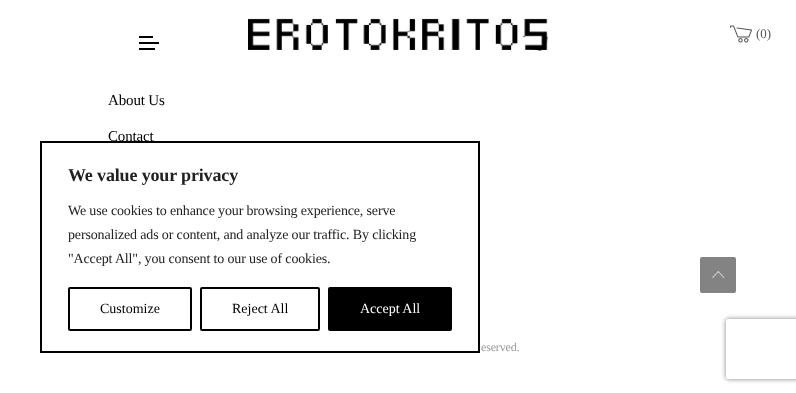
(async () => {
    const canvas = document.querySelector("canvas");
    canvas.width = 796;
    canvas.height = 393;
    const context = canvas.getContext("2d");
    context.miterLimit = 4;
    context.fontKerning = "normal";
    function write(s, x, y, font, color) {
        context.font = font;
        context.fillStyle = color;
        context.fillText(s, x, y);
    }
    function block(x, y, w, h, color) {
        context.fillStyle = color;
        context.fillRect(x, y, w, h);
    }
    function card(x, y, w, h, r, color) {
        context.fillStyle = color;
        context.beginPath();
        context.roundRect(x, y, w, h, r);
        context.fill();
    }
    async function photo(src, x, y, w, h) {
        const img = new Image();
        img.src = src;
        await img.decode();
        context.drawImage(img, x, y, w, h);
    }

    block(0, 0, 796, 393, "rgb(255, 255, 255)");
    block(139, 42, 20, 2, "rgb(0, 0, 0)");
    block(139, 36, 14, 2, "rgb(0, 0, 0)");
    block(139, 48, 16, 2, "rgb(0, 0, 0)");
    await photo("media/1.png", 248, 18, 300, 33);
    await photo("media/2.png", 730, 25, 22, 18);
    write("(0)", 756, 38, "13px Liberation Serif", "rgb(85, 85, 85)");
    context.letterSpacing = "-0.15px";
    write("About Us", 108, 105, "15px Liberation Serif", "rgb(0, 0, 0)");
    write("Contact", 108, 141, "15px Liberation Serif", "rgb(0, 0, 0)");
    write("eserved.", 481, 351, "12px Liberation Serif", "rgb(153, 153, 153)");
    context.strokeStyle = "rgb(0, 0, 0)";
    context.lineWidth = 2;
    context.strokeRect(41, 142, 438, 210);
    write("We value your privacy", 68, 181, "bold 18px Liberation Serif", "rgb(33, 33, 33)");
    write("We use cookies to enhance your browsing experience, serve", 68, 215, "14px Liberation Serif", "rgb(33, 33, 33)");
    write("personalized ads or content, and analyze our traffic. By clicking", 68, 239, "14px Liberation Serif", "rgb(33, 33, 33)");
    write("\"Accept All\", you consent to our use of cookies.", 68, 263, "14px Liberation Serif", "rgb(33, 33, 33)");
    context.beginPath();
    context.roundRect(69, 288, 122, 42, 1);
    context.stroke();
    context.letterSpacing = "0px";
    write("Customize", 100, 313, "14px Liberation Serif", "rgb(0, 0, 0)");
    context.beginPath();
    context.roundRect(201, 288, 118, 42, 1);
    context.stroke();
    write("Reject All", 232, 313, "14px Liberation Serif", "rgb(0, 0, 0)");
    context.beginPath();
    context.roundRect(329, 288, 122, 42, 1);
    context.fill();
    context.stroke();
    write("Accept All", 360, 313, "14px Liberation Serif", "rgb(255, 255, 255)");
    card(700, 257, 36, 36, 2, "rgb(131, 131, 131)");
    await photo("media/3.png", 712, 270, 13, 9);
    context.save();
    context.beginPath();
    context.moveTo(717, 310);
    context.lineTo(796, 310);
    context.lineTo(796, 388);
    context.lineTo(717, 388);
    context.closePath();
    context.moveTo(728, 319);
    context.lineTo(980, 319);
    context.bezierCurveTo(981, 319, 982, 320, 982, 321);
    context.lineTo(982, 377);
    context.bezierCurveTo(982, 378, 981, 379, 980, 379);
    context.lineTo(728, 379);
    context.bezierCurveTo(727, 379, 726, 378, 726, 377);
    context.lineTo(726, 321);
    context.bezierCurveTo(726, 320, 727, 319, 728, 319);
    context.closePath();
    context.clip("evenodd");
    context.fillStyle = "rgb(128, 128, 128)";
    context.filter = "blur(2.5px)";
    context.beginPath();
    context.roundRect(726, 319, 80, 60, 2);
    context.fill();
    context.filter = "none";
    context.restore();
})();
